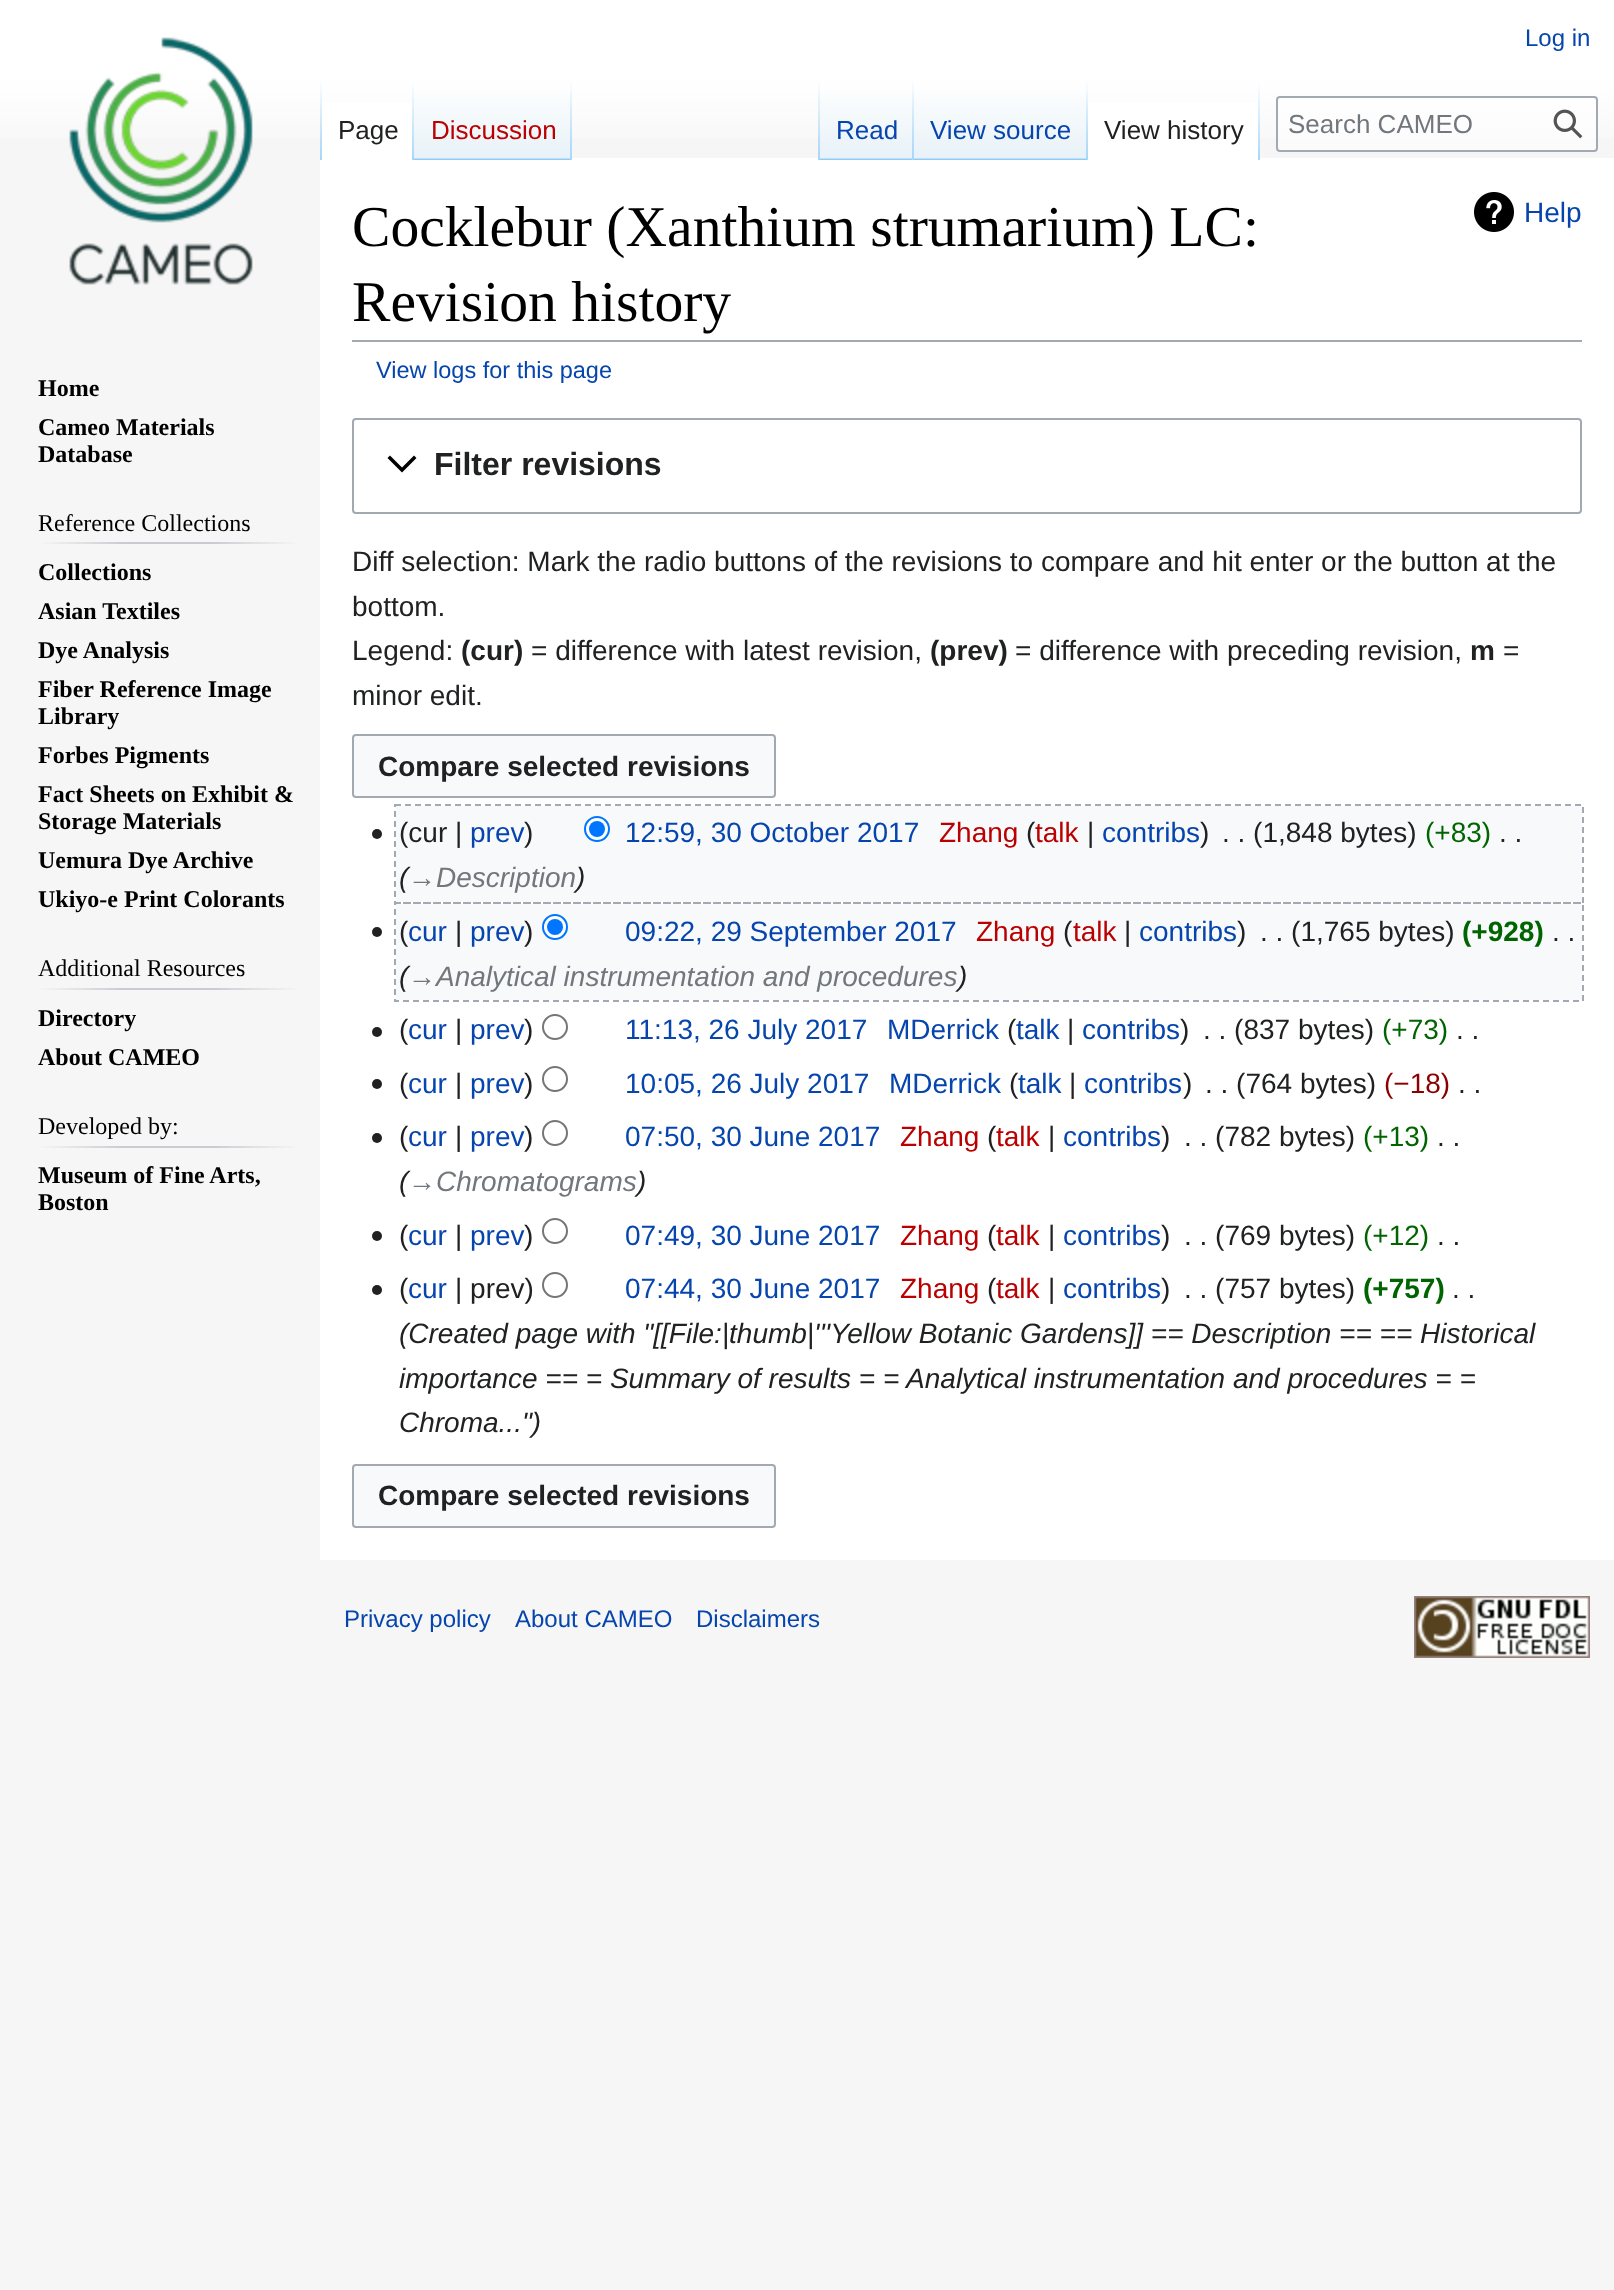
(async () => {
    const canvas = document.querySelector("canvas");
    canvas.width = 1614;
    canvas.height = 2290;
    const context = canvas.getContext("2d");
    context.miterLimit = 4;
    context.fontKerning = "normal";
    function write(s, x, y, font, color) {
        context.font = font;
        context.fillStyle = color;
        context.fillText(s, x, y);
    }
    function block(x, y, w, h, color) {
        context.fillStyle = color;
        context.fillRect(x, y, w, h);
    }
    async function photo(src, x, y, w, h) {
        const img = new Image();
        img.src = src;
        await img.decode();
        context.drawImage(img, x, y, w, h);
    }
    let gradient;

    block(0, 0, 1614, 2290, "rgb(246, 246, 246)");
    gradient = context.createLinearGradient(807, 0, 807, 160);
    gradient.addColorStop(0.5, "rgb(255, 255, 255)");
    gradient.addColorStop(1, "rgb(246, 246, 246)");
    context.fillStyle = gradient;
    context.fillRect(0, 0, 1614, 138);
    write("Log in", 1525, 46, "24px Liberation Sans", "rgb(6, 69, 173)");
    block(320, 158, 1294, 1402, "rgb(255, 255, 255)");
    gradient = context.createLinearGradient(321, 80, 321, 160);
    gradient.addColorStop(0, "rgba(167, 215, 249, 0)");
    gradient.addColorStop(1, "rgb(167, 215, 249)");
    context.fillStyle = gradient;
    context.fillRect(320, 80, 2, 80);
    block(322, 102, 90, 56, "rgb(255, 255, 255)");
    gradient = context.createLinearGradient(413, 80, 413, 160);
    gradient.addColorStop(0, "rgb(255, 255, 255)");
    gradient.addColorStop(1, "rgb(167, 215, 249)");
    context.fillStyle = gradient;
    context.fillRect(412, 80, 2, 80);
    write("Page", 338, 139, "26px Liberation Sans", "rgb(32, 33, 34)");
    gradient = context.createLinearGradient(493, 160, 493, 80);
    gradient.addColorStop(0, "rgb(119, 193, 246)");
    gradient.addColorStop(0.03, "rgb(232, 242, 248)");
    gradient.addColorStop(1, "rgb(255, 255, 255)");
    context.fillStyle = gradient;
    context.fillRect(414, 92, 158, 68);
    gradient = context.createLinearGradient(571, 80, 571, 160);
    gradient.addColorStop(0, "rgba(167, 215, 249, 0)");
    gradient.addColorStop(1, "rgb(167, 215, 249)");
    context.fillStyle = gradient;
    context.fillRect(570, 80, 2, 80);
    write("Discussion", 431, 139, "26px Liberation Sans", "rgb(186, 0, 0)");
    gradient = context.createLinearGradient(819, 80, 819, 160);
    gradient.addColorStop(0, "rgba(167, 215, 249, 0)");
    gradient.addColorStop(1, "rgb(167, 215, 249)");
    context.fillStyle = gradient;
    context.fillRect(818, 80, 2, 80);
    gradient = context.createLinearGradient(867, 160, 867, 80);
    gradient.addColorStop(0, "rgb(119, 193, 246)");
    gradient.addColorStop(0.03, "rgb(232, 242, 248)");
    gradient.addColorStop(1, "rgb(255, 255, 255)");
    context.fillStyle = gradient;
    context.fillRect(820, 92, 94, 68);
    gradient = context.createLinearGradient(913, 80, 913, 160);
    gradient.addColorStop(0, "rgba(167, 215, 249, 0)");
    gradient.addColorStop(1, "rgb(167, 215, 249)");
    context.fillStyle = gradient;
    context.fillRect(912, 80, 2, 80);
    write("Read", 836, 139, "26px Liberation Sans", "rgb(6, 69, 173)");
    gradient = context.createLinearGradient(1001, 160, 1001, 80);
    gradient.addColorStop(0, "rgb(119, 193, 246)");
    gradient.addColorStop(0.03, "rgb(232, 242, 248)");
    gradient.addColorStop(1, "rgb(255, 255, 255)");
    context.fillStyle = gradient;
    context.fillRect(914, 92, 174, 68);
    gradient = context.createLinearGradient(1087, 80, 1087, 160);
    gradient.addColorStop(0, "rgba(167, 215, 249, 0)");
    gradient.addColorStop(1, "rgb(167, 215, 249)");
    context.fillStyle = gradient;
    context.fillRect(1086, 80, 2, 80);
    write("View source", 930, 139, "26px Liberation Sans", "rgb(6, 69, 173)");
    block(1088, 102, 170, 56, "rgb(255, 255, 255)");
    gradient = context.createLinearGradient(1259, 80, 1259, 160);
    gradient.addColorStop(0, "rgb(255, 255, 255)");
    gradient.addColorStop(1, "rgb(167, 215, 249)");
    context.fillStyle = gradient;
    context.fillRect(1258, 80, 2, 80);
    write("View history", 1104, 139, "26px Liberation Sans", "rgb(32, 33, 34)");
    context.fillStyle = "rgba(255, 255, 255, 0.5)";
    context.beginPath();
    context.roundRect(1277, 97, 320, 54, 3);
    context.fill();
    context.strokeStyle = "rgb(162, 169, 177)";
    context.lineWidth = 2;
    context.stroke();
    write("Search CAMEO", 1288, 133, "26px Liberation Sans", "rgb(114, 119, 125)");
    await photo("media/1.png", 1553, 109, 30, 30);
    await photo("media/2.png", 69, 37, 184, 248);
    write("Home", 38, 396, "bold 24px Liberation Serif", "rgb(0, 0, 0)");
    write("Cameo Materials", 38, 435, "bold 24px Liberation Serif", "rgb(0, 0, 0)");
    write("Database", 38, 462, "bold 24px Liberation Serif", "rgb(0, 0, 0)");
    gradient = context.createLinearGradient(38, 543, 300, 543);
    gradient.addColorStop(0, "rgb(246, 246, 246)");
    gradient.addColorStop(0.33, "rgb(200, 204, 209)");
    gradient.addColorStop(0.66, "rgb(200, 204, 209)");
    gradient.addColorStop(1, "rgb(246, 246, 246)");
    context.fillStyle = gradient;
    context.fillRect(38, 542, 262, 2);
    write("Reference Collections", 38, 531, "24px Liberation Serif", "rgb(0, 0, 0)");
    write("Collections", 38, 580, "bold 24px Liberation Serif", "rgb(0, 0, 0)");
    write("Asian Textiles", 38, 619, "bold 24px Liberation Serif", "rgb(0, 0, 0)");
    write("Dye Analysis", 38, 658, "bold 24px Liberation Serif", "rgb(0, 0, 0)");
    write("Fiber Reference Image", 38, 697, "bold 24px Liberation Serif", "rgb(0, 0, 0)");
    write("Library", 38, 724, "bold 24px Liberation Serif", "rgb(0, 0, 0)");
    write("Forbes Pigments", 38, 763, "bold 24px Liberation Serif", "rgb(0, 0, 0)");
    write("Fact Sheets on Exhibit &", 38, 802, "bold 24px Liberation Serif", "rgb(0, 0, 0)");
    write("Storage Materials", 38, 829, "bold 24px Liberation Serif", "rgb(0, 0, 0)");
    write("Uemura Dye Archive", 38, 868, "bold 24px Liberation Serif", "rgb(0, 0, 0)");
    write("Ukiyo-e Print Colorants", 38, 907, "bold 24px Liberation Serif", "rgb(0, 0, 0)");
    gradient = context.createLinearGradient(38, 989, 300, 989);
    gradient.addColorStop(0, "rgb(246, 246, 246)");
    gradient.addColorStop(0.33, "rgb(200, 204, 209)");
    gradient.addColorStop(0.66, "rgb(200, 204, 209)");
    gradient.addColorStop(1, "rgb(246, 246, 246)");
    context.fillStyle = gradient;
    context.fillRect(38, 988, 262, 2);
    write("Additional Resources", 38, 976, "24px Liberation Serif", "rgb(0, 0, 0)");
    write("Directory", 38, 1026, "bold 24px Liberation Serif", "rgb(0, 0, 0)");
    write("About CAMEO", 38, 1065, "bold 24px Liberation Serif", "rgb(0, 0, 0)");
    gradient = context.createLinearGradient(38, 1147, 300, 1147);
    gradient.addColorStop(0, "rgb(246, 246, 246)");
    gradient.addColorStop(0.33, "rgb(200, 204, 209)");
    gradient.addColorStop(0.66, "rgb(200, 204, 209)");
    gradient.addColorStop(1, "rgb(246, 246, 246)");
    context.fillStyle = gradient;
    context.fillRect(38, 1146, 262, 2);
    write("Developed by:", 38, 1134, "24px Liberation Serif", "rgb(0, 0, 0)");
    write("Museum of Fine Arts,", 38, 1183, "bold 24px Liberation Serif", "rgb(0, 0, 0)");
    write("Boston", 38, 1210, "bold 24px Liberation Serif", "rgb(0, 0, 0)");
    block(352, 340, 1230, 2, "rgb(162, 169, 177)");
    write("Cocklebur (Xanthium strumarium) LC:", 352, 246, "57.6px Liberation Serif", "rgb(0, 0, 0)");
    write("Revision history", 352, 321, "57.6px Liberation Serif", "rgb(0, 0, 0)");
    await photo("media/3.png", 1474, 192, 40, 40);
    write("Help", 1524, 222, "28px Liberation Sans", "rgb(6, 69, 173)");
    write("View logs for this page", 376, 378, "23.5px Liberation Sans", "rgb(6, 69, 173)");
    context.beginPath();
    context.roundRect(353, 419, 1228, 94, 3);
    context.stroke();
    context.fillStyle = "rgb(0, 0, 0)";
    context.beginPath();
    context.moveTo(414, 455.5);
    context.lineTo(402, 467.5);
    context.lineTo(390, 455.5);
    context.lineTo(387.5, 458);
    context.lineTo(402, 472.5);
    context.lineTo(416.5, 458);
    context.closePath();
    context.fill();
    write("Filter revisions", 434, 475, "bold 32px Liberation Sans", "rgb(32, 33, 34)");
    write("Diff selection: Mark the radio buttons of the revisions to compare and hit enter or the button at the", 352, 571, "28px Liberation Sans", "rgb(32, 33, 34)");
    write("bottom.", 352, 616, "28px Liberation Sans", "rgb(32, 33, 34)");
    write("Legend:", 352, 660, "28px Liberation Sans", "rgb(32, 33, 34)");
    write("(cur)", 461, 660, "bold 28px Liberation Sans", "rgb(32, 33, 34)");
    write("= difference with latest revision,", 531, 660, "28px Liberation Sans", "rgb(32, 33, 34)");
    write("(prev)", 930, 660, "bold 28px Liberation Sans", "rgb(32, 33, 34)");
    write("= difference with preceding revision,", 1015, 660, "28px Liberation Sans", "rgb(32, 33, 34)");
    write("m", 1470, 660, "bold 28px Liberation Sans", "rgb(32, 33, 34)");
    write("=", 1503, 660, "28px Liberation Sans", "rgb(32, 33, 34)");
    write("minor edit.", 352, 705, "28px Liberation Sans", "rgb(32, 33, 34)");
    context.fillStyle = "rgb(248, 249, 250)";
    context.beginPath();
    context.roundRect(353, 735, 422, 62, 3);
    context.fill();
    context.stroke();
    write("Compare selected revisions", 378, 776, "bold 28px Liberation Sans", "rgb(32, 33, 34)");
    block(396, 806, 1186, 96, "rgb(248, 249, 250)");
    await photo("media/4.png", 372, 829, 10, 10);
    write("(cur |", 399, 842, "28px Liberation Sans", "rgb(32, 33, 34)");
    write("prev", 470, 842, "28px Liberation Sans", "rgb(6, 69, 173)");
    write(")", 524, 842, "28px Liberation Sans", "rgb(32, 33, 34)");
    context.fillStyle = "rgb(255, 255, 255)";
    context.beginPath();
    context.arc(597, 829, 12, 0, Math.PI * 2);
    context.fill();
    context.strokeStyle = "rgb(0, 117, 255)";
    context.stroke();
    context.fillStyle = "rgb(0, 117, 255)";
    context.beginPath();
    context.arc(597, 829, 8, 0, Math.PI * 2);
    context.fill();
    write("12:59, 30 October 2017", 625, 842, "28px Liberation Sans", "rgb(6, 69, 173)");
    write("Zhang", 939, 842, "28px Liberation Sans", "rgb(186, 0, 0)");
    write("(", 1026, 842, "28px Liberation Sans", "rgb(32, 33, 34)");
    write("talk", 1035, 842, "28px Liberation Sans", "rgb(186, 0, 0)");
    write("|", 1087, 842, "28px Liberation Sans", "rgb(32, 33, 34)");
    write("contribs", 1102, 842, "28px Liberation Sans", "rgb(6, 69, 173)");
    write(")", 1200, 842, "28px Liberation Sans", "rgb(32, 33, 34)");
    write(". . (1,848 bytes)", 1222, 842, "28px Liberation Sans", "rgb(32, 33, 34)");
    write("(+83)", 1425, 842, "28px Liberation Sans", "rgb(0, 100, 0)");
    write(". .", 1499, 842, "28px Liberation Sans", "rgb(32, 33, 34)");
    write("(", 399, 887, "italic 28px Liberation Sans", "rgb(32, 33, 34)");
    write("→Description", 408, 887, "italic 28px Liberation Sans", "rgb(114, 119, 125)");
    write(")", 576, 887, "italic 28px Liberation Sans", "rgb(32, 33, 34)");
    context.beginPath();
    context.moveTo(395, 805);
    context.lineTo(1583, 805);
    context.lineTo(1583, 903);
    context.lineTo(395, 903);
    context.closePath();
    context.strokeStyle = "rgb(162, 169, 177)";
    context.setLineDash([6, 4]);
    context.stroke();
    block(396, 904, 1186, 96, "rgb(248, 249, 250)");
    await photo("media/4.png", 372, 927, 10, 10);
    write("(", 399, 941, "28px Liberation Sans", "rgb(32, 33, 34)");
    write("cur", 408, 941, "28px Liberation Sans", "rgb(6, 69, 173)");
    write("|", 455, 941, "28px Liberation Sans", "rgb(32, 33, 34)");
    write("prev", 470, 941, "28px Liberation Sans", "rgb(6, 69, 173)");
    write(")", 524, 941, "28px Liberation Sans", "rgb(32, 33, 34)");
    context.fillStyle = "rgb(255, 255, 255)";
    context.beginPath();
    context.arc(555, 927, 12, 0, Math.PI * 2);
    context.fill();
    context.strokeStyle = "rgb(0, 117, 255)";
    context.setLineDash([]);
    context.stroke();
    context.fillStyle = "rgb(0, 117, 255)";
    context.beginPath();
    context.arc(555, 927, 8, 0, Math.PI * 2);
    context.fill();
    write("09:22, 29 September 2017", 625, 941, "28px Liberation Sans", "rgb(6, 69, 173)");
    write("Zhang", 976, 941, "28px Liberation Sans", "rgb(186, 0, 0)");
    write("(", 1063, 941, "28px Liberation Sans", "rgb(32, 33, 34)");
    write("talk", 1073, 941, "28px Liberation Sans", "rgb(186, 0, 0)");
    write("|", 1124, 941, "28px Liberation Sans", "rgb(32, 33, 34)");
    write("contribs", 1139, 941, "28px Liberation Sans", "rgb(6, 69, 173)");
    write(")", 1237, 941, "28px Liberation Sans", "rgb(32, 33, 34)");
    write(". . (1,765 bytes)", 1260, 941, "28px Liberation Sans", "rgb(32, 33, 34)");
    write("(+928)", 1462, 941, "bold 28px Liberation Sans", "rgb(0, 100, 0)");
    write(". .", 1552, 941, "28px Liberation Sans", "rgb(32, 33, 34)");
    write("(", 399, 986, "italic 28px Liberation Sans", "rgb(32, 33, 34)");
    write("→Analytical instrumentation and procedures", 408, 986, "italic 28px Liberation Sans", "rgb(114, 119, 125)");
    write(")", 958, 986, "italic 28px Liberation Sans", "rgb(32, 33, 34)");
    context.beginPath();
    context.moveTo(395, 903);
    context.lineTo(1583, 903);
    context.lineTo(1583, 1001);
    context.lineTo(395, 1001);
    context.closePath();
    context.strokeStyle = "rgb(162, 169, 177)";
    context.setLineDash([6, 4]);
    context.stroke();
    await photo("media/4.png", 372, 1027, 10, 10);
    write("(", 399, 1039, "28px Liberation Sans", "rgb(32, 33, 34)");
    write("cur", 408, 1039, "28px Liberation Sans", "rgb(6, 69, 173)");
    write("|", 455, 1039, "28px Liberation Sans", "rgb(32, 33, 34)");
    write("prev", 470, 1039, "28px Liberation Sans", "rgb(6, 69, 173)");
    write(")", 524, 1039, "28px Liberation Sans", "rgb(32, 33, 34)");
    context.beginPath();
    context.arc(555, 1027, 12, 0, Math.PI * 2);
    context.strokeStyle = "rgb(118, 118, 118)";
    context.setLineDash([]);
    context.stroke();
    write("11:13, 26 July 2017", 625, 1039, "28px Liberation Sans", "rgb(6, 69, 173)");
    write("MDerrick", 887, 1039, "28px Liberation Sans", "rgb(6, 69, 173)");
    write("(", 1007, 1039, "28px Liberation Sans", "rgb(32, 33, 34)");
    write("talk", 1016, 1039, "28px Liberation Sans", "rgb(6, 69, 173)");
    write("|", 1067, 1039, "28px Liberation Sans", "rgb(32, 33, 34)");
    write("contribs", 1082, 1039, "28px Liberation Sans", "rgb(6, 69, 173)");
    write(")", 1180, 1039, "28px Liberation Sans", "rgb(32, 33, 34)");
    write(". . (837 bytes)", 1203, 1039, "28px Liberation Sans", "rgb(32, 33, 34)");
    write("(+73)", 1382, 1039, "28px Liberation Sans", "rgb(0, 100, 0)");
    write(". .", 1456, 1039, "28px Liberation Sans", "rgb(32, 33, 34)");
    await photo("media/4.png", 372, 1079, 10, 10);
    write("(", 399, 1093, "28px Liberation Sans", "rgb(32, 33, 34)");
    write("cur", 408, 1093, "28px Liberation Sans", "rgb(6, 69, 173)");
    write("|", 455, 1093, "28px Liberation Sans", "rgb(32, 33, 34)");
    write("prev", 470, 1093, "28px Liberation Sans", "rgb(6, 69, 173)");
    write(")", 524, 1093, "28px Liberation Sans", "rgb(32, 33, 34)");
    context.beginPath();
    context.arc(555, 1079, 12, 0, Math.PI * 2);
    context.stroke();
    write("10:05, 26 July 2017", 625, 1093, "28px Liberation Sans", "rgb(6, 69, 173)");
    write("MDerrick", 889, 1093, "28px Liberation Sans", "rgb(6, 69, 173)");
    write("(", 1009, 1093, "28px Liberation Sans", "rgb(32, 33, 34)");
    write("talk", 1018, 1093, "28px Liberation Sans", "rgb(6, 69, 173)");
    write("|", 1069, 1093, "28px Liberation Sans", "rgb(32, 33, 34)");
    write("contribs", 1084, 1093, "28px Liberation Sans", "rgb(6, 69, 173)");
    write(")", 1183, 1093, "28px Liberation Sans", "rgb(32, 33, 34)");
    write(". . (764 bytes)", 1205, 1093, "28px Liberation Sans", "rgb(32, 33, 34)");
    write("(−18)", 1384, 1093, "28px Liberation Sans", "rgb(139, 0, 0)");
    write(". .", 1458, 1093, "28px Liberation Sans", "rgb(32, 33, 34)");
    await photo("media/4.png", 372, 1133, 10, 10);
    write("(", 399, 1146, "28px Liberation Sans", "rgb(32, 33, 34)");
    write("cur", 408, 1146, "28px Liberation Sans", "rgb(6, 69, 173)");
    write("|", 455, 1146, "28px Liberation Sans", "rgb(32, 33, 34)");
    write("prev", 470, 1146, "28px Liberation Sans", "rgb(6, 69, 173)");
    write(")", 524, 1146, "28px Liberation Sans", "rgb(32, 33, 34)");
    context.beginPath();
    context.arc(555, 1133, 12, 0, Math.PI * 2);
    context.stroke();
    write("07:50, 30 June 2017", 625, 1146, "28px Liberation Sans", "rgb(6, 69, 173)");
    write("Zhang", 900, 1146, "28px Liberation Sans", "rgb(186, 0, 0)");
    write("(", 987, 1146, "28px Liberation Sans", "rgb(32, 33, 34)");
    write("talk", 996, 1146, "28px Liberation Sans", "rgb(186, 0, 0)");
    write("|", 1048, 1146, "28px Liberation Sans", "rgb(32, 33, 34)");
    write("contribs", 1063, 1146, "28px Liberation Sans", "rgb(6, 69, 173)");
    write(")", 1161, 1146, "28px Liberation Sans", "rgb(32, 33, 34)");
    write(". . (782 bytes)", 1184, 1146, "28px Liberation Sans", "rgb(32, 33, 34)");
    write("(+13)", 1363, 1146, "28px Liberation Sans", "rgb(0, 100, 0)");
    write(". .", 1437, 1146, "28px Liberation Sans", "rgb(32, 33, 34)");
    write("(", 399, 1191, "italic 28px Liberation Sans", "rgb(32, 33, 34)");
    write("→Chromatograms", 408, 1191, "italic 28px Liberation Sans", "rgb(114, 119, 125)");
    write(")", 637, 1191, "italic 28px Liberation Sans", "rgb(32, 33, 34)");
    await photo("media/4.png", 372, 1231, 10, 10);
    write("(", 399, 1245, "28px Liberation Sans", "rgb(32, 33, 34)");
    write("cur", 408, 1245, "28px Liberation Sans", "rgb(6, 69, 173)");
    write("|", 455, 1245, "28px Liberation Sans", "rgb(32, 33, 34)");
    write("prev", 470, 1245, "28px Liberation Sans", "rgb(6, 69, 173)");
    write(")", 524, 1245, "28px Liberation Sans", "rgb(32, 33, 34)");
    context.beginPath();
    context.arc(555, 1231, 12, 0, Math.PI * 2);
    context.stroke();
    write("07:49, 30 June 2017", 625, 1245, "28px Liberation Sans", "rgb(6, 69, 173)");
    write("Zhang", 900, 1245, "28px Liberation Sans", "rgb(186, 0, 0)");
    write("(", 987, 1245, "28px Liberation Sans", "rgb(32, 33, 34)");
    write("talk", 996, 1245, "28px Liberation Sans", "rgb(186, 0, 0)");
    write("|", 1048, 1245, "28px Liberation Sans", "rgb(32, 33, 34)");
    write("contribs", 1063, 1245, "28px Liberation Sans", "rgb(6, 69, 173)");
    write(")", 1161, 1245, "28px Liberation Sans", "rgb(32, 33, 34)");
    write(". . (769 bytes)", 1184, 1245, "28px Liberation Sans", "rgb(32, 33, 34)");
    write("(+12)", 1363, 1245, "28px Liberation Sans", "rgb(0, 100, 0)");
    write(". .", 1437, 1245, "28px Liberation Sans", "rgb(32, 33, 34)");
    await photo("media/4.png", 372, 1285, 10, 10);
    write("(", 399, 1298, "28px Liberation Sans", "rgb(32, 33, 34)");
    write("cur", 408, 1298, "28px Liberation Sans", "rgb(6, 69, 173)");
    write("| prev)", 455, 1298, "28px Liberation Sans", "rgb(32, 33, 34)");
    context.beginPath();
    context.arc(555, 1285, 12, 0, Math.PI * 2);
    context.stroke();
    write("07:44, 30 June 2017", 625, 1298, "28px Liberation Sans", "rgb(6, 69, 173)");
    write("Zhang", 900, 1298, "28px Liberation Sans", "rgb(186, 0, 0)");
    write("(", 987, 1298, "28px Liberation Sans", "rgb(32, 33, 34)");
    write("talk", 996, 1298, "28px Liberation Sans", "rgb(186, 0, 0)");
    write("|", 1048, 1298, "28px Liberation Sans", "rgb(32, 33, 34)");
    write("contribs", 1063, 1298, "28px Liberation Sans", "rgb(6, 69, 173)");
    write(")", 1161, 1298, "28px Liberation Sans", "rgb(32, 33, 34)");
    write(". . (757 bytes)", 1184, 1298, "28px Liberation Sans", "rgb(32, 33, 34)");
    write("(+757)", 1363, 1298, "bold 28px Liberation Sans", "rgb(0, 100, 0)");
    write(". .", 1452, 1298, "28px Liberation Sans", "rgb(32, 33, 34)");
    write("(Created page with \"[[File:|thumb|'''Yellow Botanic Gardens]] == Description == == Historical", 399, 1343, "italic 28px Liberation Sans", "rgb(32, 33, 34)");
    write("importance == = Summary of results = = Analytical instrumentation and procedures = =", 399, 1388, "italic 28px Liberation Sans", "rgb(32, 33, 34)");
    write("Chroma...\")", 399, 1432, "italic 28px Liberation Sans", "rgb(32, 33, 34)");
    context.fillStyle = "rgb(248, 249, 250)";
    context.beginPath();
    context.roundRect(353, 1465, 422, 62, 3);
    context.fill();
    context.strokeStyle = "rgb(162, 169, 177)";
    context.stroke();
    write("Compare selected revisions", 378, 1505, "bold 28px Liberation Sans", "rgb(32, 33, 34)");
    write("Privacy policy", 344, 1627, "24px Liberation Sans", "rgb(6, 69, 173)");
    write("About CAMEO", 515, 1627, "24px Liberation Sans", "rgb(6, 69, 173)");
    write("Disclaimers", 696, 1627, "24px Liberation Sans", "rgb(6, 69, 173)");
    await photo("media/5.png", 1414, 1596, 176, 62);
})();
